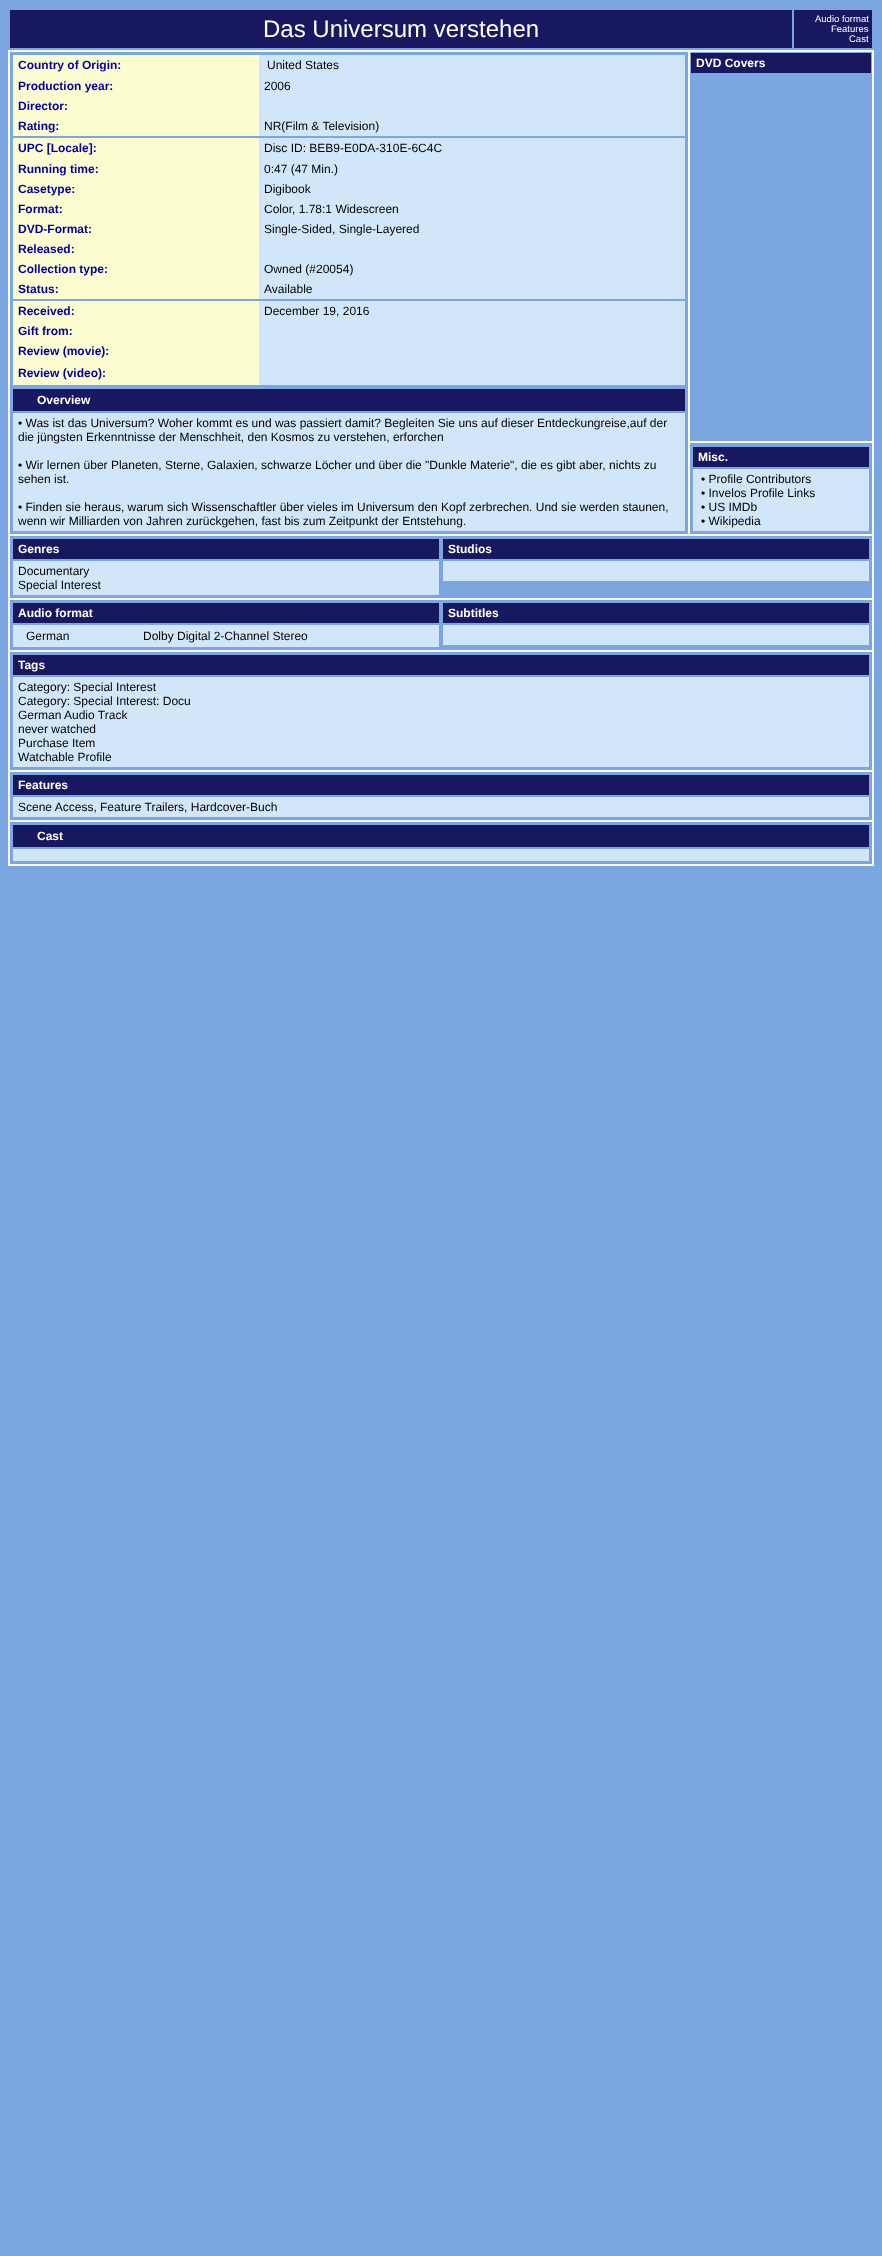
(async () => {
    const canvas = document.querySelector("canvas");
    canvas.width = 882;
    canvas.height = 2256;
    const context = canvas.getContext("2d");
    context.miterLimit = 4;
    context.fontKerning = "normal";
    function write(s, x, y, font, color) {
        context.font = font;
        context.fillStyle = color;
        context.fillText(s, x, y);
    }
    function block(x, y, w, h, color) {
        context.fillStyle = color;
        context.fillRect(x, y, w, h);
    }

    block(0, 0, 882, 2256, "rgb(123, 166, 226)");
    block(10, 10, 782, 38, "rgb(24, 24, 96)");
    write("Das Universum verstehen", 263, 37, "24px Liberation Sans", "rgb(255, 255, 255)");
    block(794, 10, 78, 38, "rgb(24, 24, 96)");
    write("Audio format", 815, 22, "9.5px Liberation Sans", "rgb(255, 255, 255)");
    write("Features", 831, 32, "9.5px Liberation Sans", "rgb(255, 255, 255)");
    write("Cast", 849, 42, "9.5px Liberation Sans", "rgb(255, 255, 255)");
    block(8, 50, 866, 816, "rgb(251, 252, 208)");
    block(10, 52, 678, 482, "rgb(123, 166, 226)");
    block(13, 55, 246, 81, "rgb(251, 252, 208)");
    write("Country of Origin:", 18, 69, "bold 12px Liberation Sans", "rgb(0, 0, 160)");
    block(259, 55, 426, 81, "rgb(209, 231, 249)");
    write("United States", 267, 69, "12px Liberation Sans", "rgb(0, 0, 0)");
    write("Production year:", 18, 90, "bold 12px Liberation Sans", "rgb(0, 0, 160)");
    write("2006", 264, 90, "12px Liberation Sans", "rgb(0, 0, 0)");
    write("Director:", 18, 110, "bold 12px Liberation Sans", "rgb(0, 0, 160)");
    write("Rating:", 18, 130, "bold 12px Liberation Sans", "rgb(0, 0, 160)");
    write("NR(Film & Television)", 264, 130, "12px Liberation Sans", "rgb(0, 0, 0)");
    block(13, 138, 246, 161, "rgb(251, 252, 208)");
    write("UPC [Locale]:", 18, 152, "bold 12px Liberation Sans", "rgb(0, 0, 160)");
    block(259, 138, 426, 161, "rgb(209, 231, 249)");
    write("Disc ID: BEB9-E0DA-310E-6C4C", 264, 152, "12px Liberation Sans", "rgb(0, 0, 0)");
    write("Running time:", 18, 173, "bold 12px Liberation Sans", "rgb(0, 0, 160)");
    write("0:47 (47 Min.)", 264, 173, "12px Liberation Sans", "rgb(0, 0, 0)");
    write("Casetype:", 18, 193, "bold 12px Liberation Sans", "rgb(0, 0, 160)");
    write("Digibook", 264, 193, "12px Liberation Sans", "rgb(0, 0, 0)");
    write("Format:", 18, 213, "bold 12px Liberation Sans", "rgb(0, 0, 160)");
    write("Color, 1.78:1 Widescreen", 264, 213, "12px Liberation Sans", "rgb(0, 0, 0)");
    write("DVD-Format:", 18, 233, "bold 12px Liberation Sans", "rgb(0, 0, 160)");
    write("Single-Sided, Single-Layered", 264, 233, "12px Liberation Sans", "rgb(0, 0, 0)");
    write("Released:", 18, 253, "bold 12px Liberation Sans", "rgb(0, 0, 160)");
    write("Collection type:", 18, 273, "bold 12px Liberation Sans", "rgb(0, 0, 160)");
    write("Owned (#20054)", 264, 273, "12px Liberation Sans", "rgb(0, 0, 0)");
    write("Status:", 18, 293, "bold 12px Liberation Sans", "rgb(0, 0, 160)");
    write("Available", 264, 293, "12px Liberation Sans", "rgb(0, 0, 0)");
    block(13, 301, 246, 84, "rgb(251, 252, 208)");
    write("Received:", 18, 315, "bold 12px Liberation Sans", "rgb(0, 0, 160)");
    block(259, 301, 426, 84, "rgb(209, 231, 249)");
    write("December 19, 2016", 264, 315, "12px Liberation Sans", "rgb(0, 0, 0)");
    write("Gift from:", 18, 335, "bold 12px Liberation Sans", "rgb(0, 0, 160)");
    write("Review (movie):", 18, 355, "bold 12px Liberation Sans", "rgb(0, 0, 160)");
    write("Review (video):", 18, 377, "bold 12px Liberation Sans", "rgb(0, 0, 160)");
    block(13, 389, 672, 22, "rgb(24, 24, 96)");
    write("Overview", 37, 404, "bold 12px Liberation Sans", "rgb(255, 255, 255)");
    block(13, 413, 672, 118, "rgb(209, 231, 249)");
    write("• Was ist das Universum? Woher kommt es und was passiert damit? Begleiten Sie uns auf dieser Entdeckungreise,auf der", 18, 427, "12px Liberation Sans", "rgb(0, 0, 0)");
    write("die jüngsten Erkenntnisse der Menschheit, den Kosmos zu verstehen, erforchen", 18, 441, "12px Liberation Sans", "rgb(0, 0, 0)");
    write("• Wir lernen über Planeten, Sterne, Galaxien, schwarze Löcher und über die \"Dunkle Materie\", die es gibt aber, nichts zu", 18, 469, "12px Liberation Sans", "rgb(0, 0, 0)");
    write("sehen ist.", 18, 483, "12px Liberation Sans", "rgb(0, 0, 0)");
    write("• Finden sie heraus, warum sich Wissenschaftler über vieles im Universum den Kopf zerbrechen. Und sie werden staunen,", 18, 511, "12px Liberation Sans", "rgb(0, 0, 0)");
    write("wenn wir Milliarden von Jahren zurückgehen, fast bis zum Zeitpunkt der Entstehung.", 18, 525, "12px Liberation Sans", "rgb(0, 0, 0)");
    block(690, 52, 182, 389, "rgb(123, 166, 226)");
    block(691, 53, 180, 20, "rgb(24, 24, 96)");
    write("DVD Covers", 696, 67, "bold 12px Liberation Sans", "rgb(255, 255, 255)");
    block(690, 443, 182, 91, "rgb(123, 166, 226)");
    block(693, 447, 176, 20, "rgb(24, 24, 96)");
    write("Misc.", 698, 461, "bold 12px Liberation Sans", "rgb(255, 255, 255)");
    block(693, 469, 176, 62, "rgb(209, 231, 249)");
    write("• Profile Contributors", 701, 483, "12px Liberation Sans", "rgb(0, 0, 0)");
    write("• Invelos Profile Links", 701, 497, "12px Liberation Sans", "rgb(0, 0, 0)");
    write("• US IMDb", 701, 511, "12px Liberation Sans", "rgb(0, 0, 0)");
    write("• Wikipedia", 701, 525, "12px Liberation Sans", "rgb(0, 0, 0)");
    block(10, 536, 862, 62, "rgb(123, 166, 226)");
    block(13, 539, 426, 20, "rgb(24, 24, 96)");
    write("Genres", 18, 553, "bold 12px Liberation Sans", "rgb(255, 255, 255)");
    block(13, 561, 426, 34, "rgb(209, 231, 249)");
    write("Documentary", 18, 575, "12px Liberation Sans", "rgb(0, 0, 0)");
    write("Special Interest", 18, 589, "12px Liberation Sans", "rgb(0, 0, 0)");
    block(443, 539, 426, 20, "rgb(24, 24, 96)");
    write("Studios", 448, 553, "bold 12px Liberation Sans", "rgb(255, 255, 255)");
    block(443, 561, 426, 20, "rgb(209, 231, 249)");
    block(10, 600, 862, 50, "rgb(123, 166, 226)");
    block(13, 603, 426, 20, "rgb(24, 24, 96)");
    write("Audio format", 18, 617, "bold 12px Liberation Sans", "rgb(255, 255, 255)");
    block(13, 625, 426, 22, "rgb(209, 231, 249)");
    write("German", 26, 640, "12px Liberation Sans", "rgb(0, 0, 0)");
    write("Dolby Digital 2-Channel Stereo", 143, 640, "12px Liberation Sans", "rgb(0, 0, 0)");
    block(443, 603, 426, 20, "rgb(24, 24, 96)");
    write("Subtitles", 448, 617, "bold 12px Liberation Sans", "rgb(255, 255, 255)");
    block(443, 625, 426, 20, "rgb(209, 231, 249)");
    block(10, 652, 862, 118, "rgb(123, 166, 226)");
    block(13, 655, 856, 20, "rgb(24, 24, 96)");
    write("Tags", 18, 669, "bold 12px Liberation Sans", "rgb(255, 255, 255)");
    block(13, 677, 856, 90, "rgb(209, 231, 249)");
    write("Category: Special Interest", 18, 691, "12px Liberation Sans", "rgb(0, 0, 0)");
    write("Category: Special Interest: Docu", 18, 705, "12px Liberation Sans", "rgb(0, 0, 0)");
    write("German Audio Track", 18, 719, "12px Liberation Sans", "rgb(0, 0, 0)");
    write("never watched", 18, 733, "12px Liberation Sans", "rgb(0, 0, 0)");
    write("Purchase Item", 18, 747, "12px Liberation Sans", "rgb(0, 0, 0)");
    write("Watchable Profile", 18, 761, "12px Liberation Sans", "rgb(0, 0, 0)");
    block(10, 772, 862, 48, "rgb(123, 166, 226)");
    block(13, 775, 856, 20, "rgb(24, 24, 96)");
    write("Features", 18, 789, "bold 12px Liberation Sans", "rgb(255, 255, 255)");
    block(13, 797, 856, 20, "rgb(209, 231, 249)");
    write("Scene Access, Feature Trailers, Hardcover-Buch", 18, 811, "12px Liberation Sans", "rgb(0, 0, 0)");
    block(10, 822, 862, 42, "rgb(123, 166, 226)");
    block(13, 825, 856, 22, "rgb(24, 24, 96)");
    write("Cast", 37, 840, "bold 12px Liberation Sans", "rgb(255, 255, 255)");
    block(13, 849, 856, 12, "rgb(209, 231, 249)");
})();
